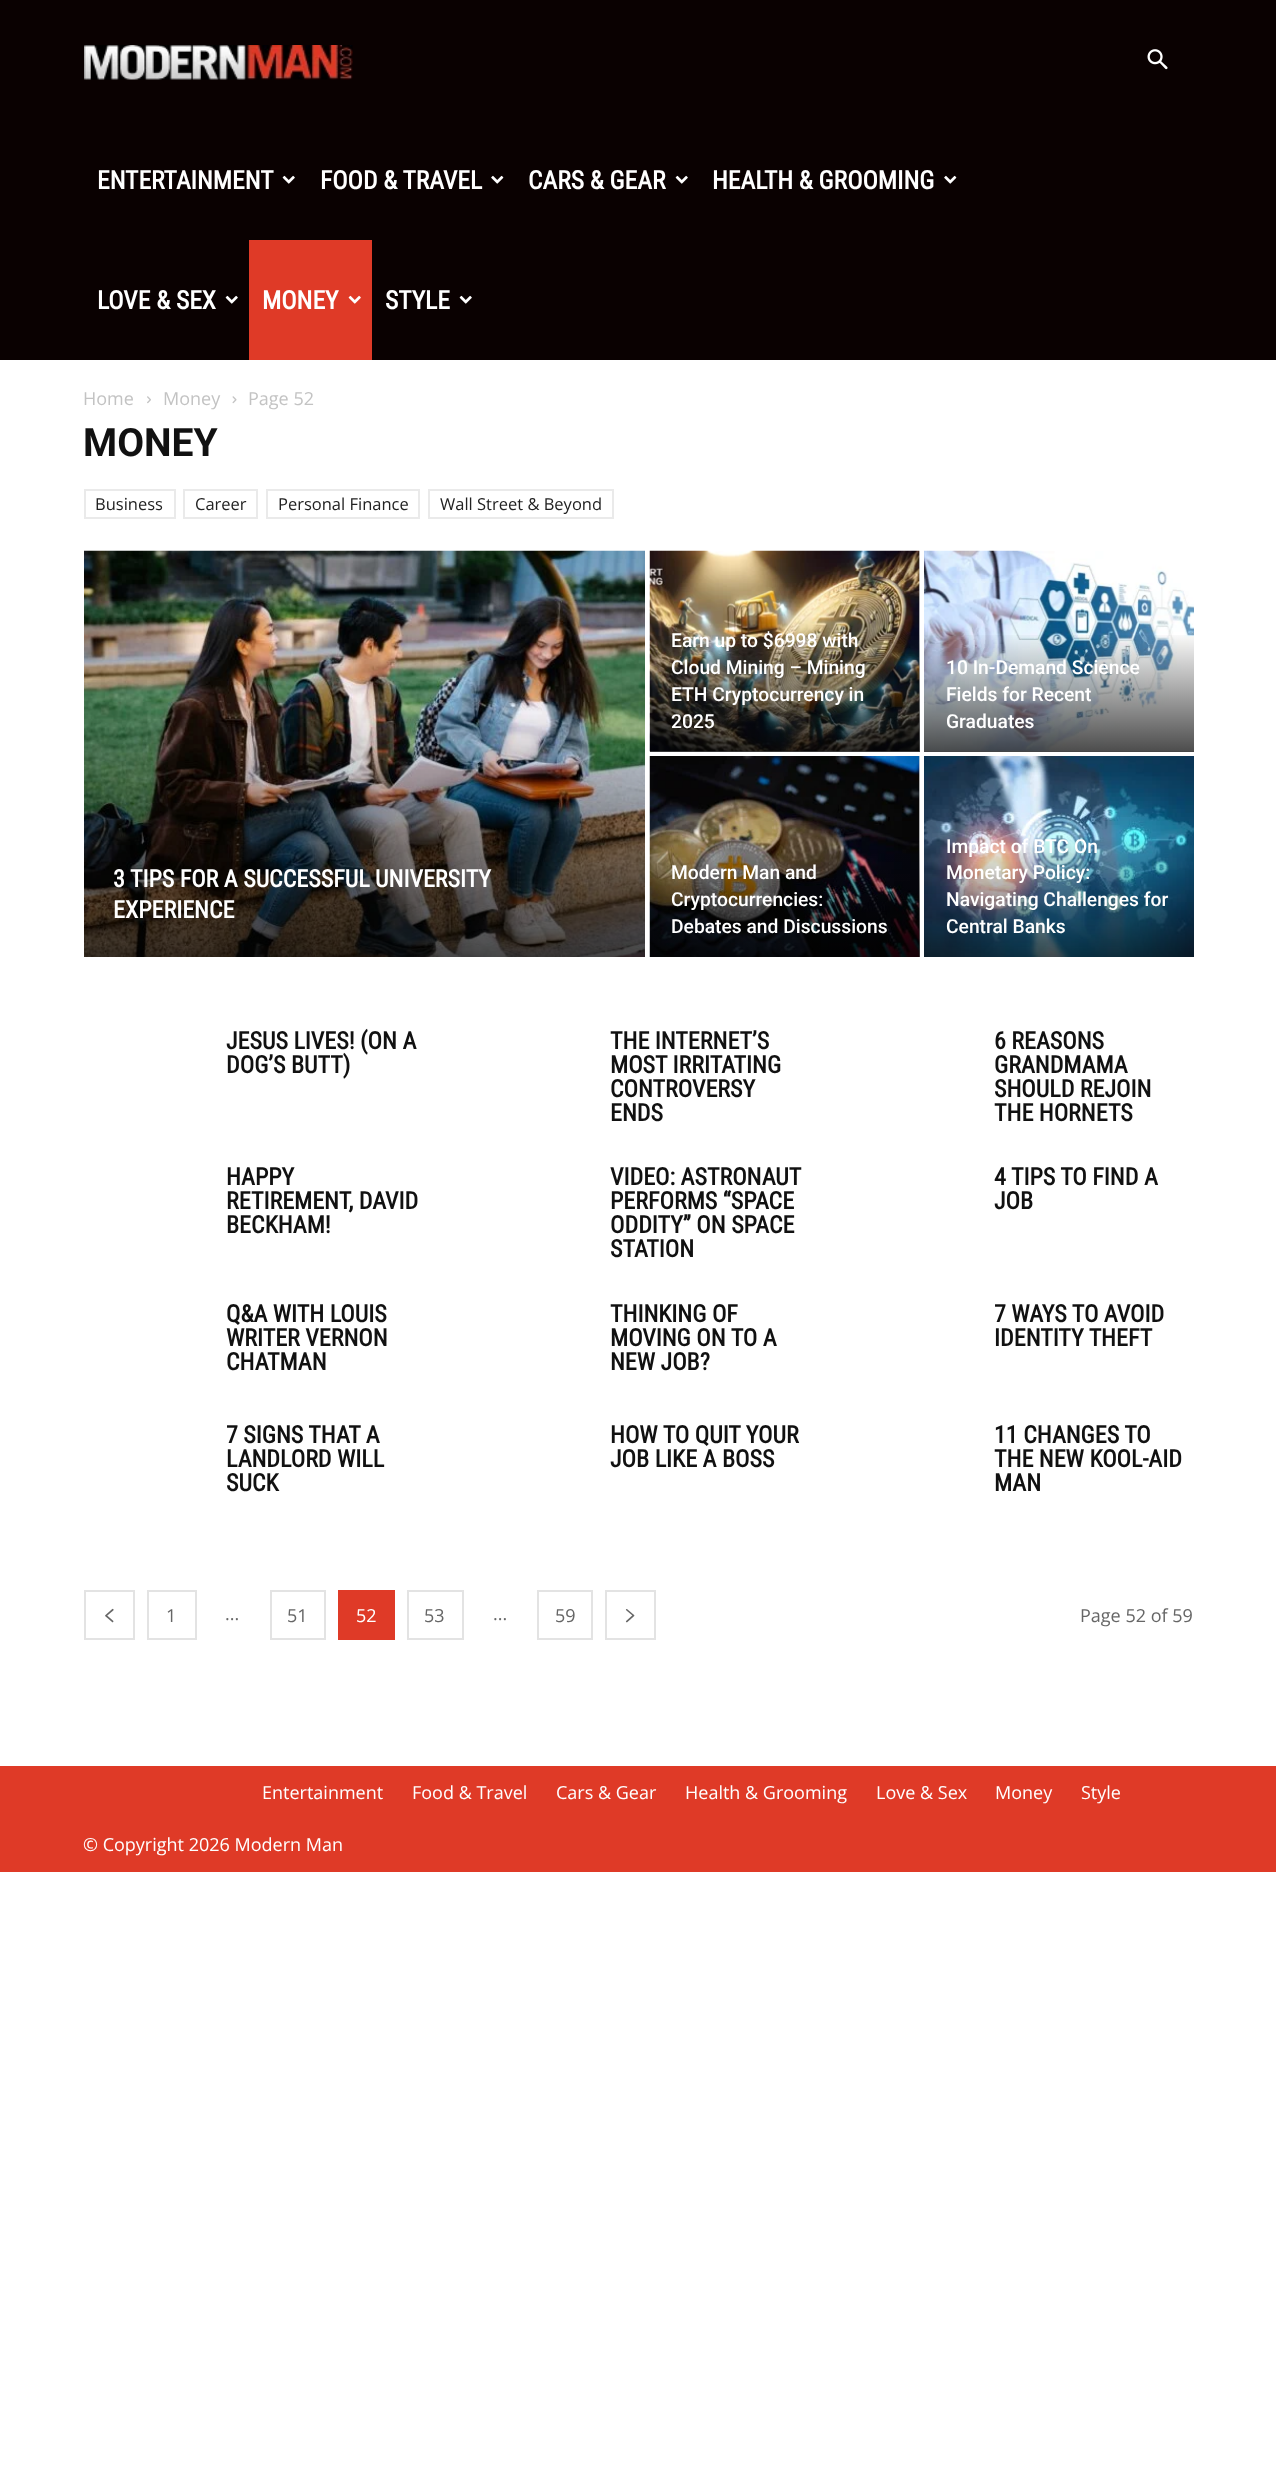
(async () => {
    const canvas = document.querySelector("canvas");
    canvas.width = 1276;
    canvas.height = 2469;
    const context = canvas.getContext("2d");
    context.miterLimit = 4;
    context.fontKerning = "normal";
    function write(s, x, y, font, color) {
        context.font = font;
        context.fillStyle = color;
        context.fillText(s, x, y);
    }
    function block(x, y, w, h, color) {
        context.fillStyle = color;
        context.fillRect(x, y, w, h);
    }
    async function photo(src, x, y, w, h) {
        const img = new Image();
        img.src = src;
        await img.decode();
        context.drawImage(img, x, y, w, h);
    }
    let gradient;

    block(0, 0, 1276, 2469, "rgb(255, 255, 255)");
    block(0, 0, 1276, 360, "rgb(10, 1, 1)");
    await photo("media/1.png", 1147, 49, 21, 21);
    await photo("media/2.png", 84, 45, 269, 35);
    write("ENTERTAINMENT", 97, 189, "bold 25.5px Roboto Condensed", "rgb(255, 255, 255)");
    await photo("media/3.png", 282, 175, 13, 9);
    write("FOOD & TRAVEL", 320, 189, "bold 25.5px Roboto Condensed", "rgb(255, 255, 255)");
    await photo("media/4.png", 491, 175, 13, 9);
    write("CARS & GEAR", 528, 189, "bold 25.5px Roboto Condensed", "rgb(255, 255, 255)");
    await photo("media/3.png", 675, 175, 13, 9);
    write("HEALTH & GROOMING", 712, 189, "bold 25.5px Roboto Condensed", "rgb(255, 255, 255)");
    await photo("media/4.png", 944, 175, 13, 9);
    write("LOVE & SEX", 97, 309, "bold 25.5px Roboto Condensed", "rgb(255, 255, 255)");
    await photo("media/3.png", 225, 295, 13, 9);
    block(249, 240, 123, 120, "rgb(223, 58, 39)");
    write("MONEY", 262, 309, "bold 25.5px Roboto Condensed", "rgb(255, 255, 255)");
    await photo("media/5.png", 348, 295, 13, 9);
    write("STYLE", 385, 309, "bold 25.5px Roboto Condensed", "rgb(255, 255, 255)");
    await photo("media/3.png", 459, 295, 13, 9);
    write("Home", 83, 405, "18px Open Sans", "rgb(195, 195, 195)");
    await photo("media/6.png", 147, 396, 4, 8);
    write("Money", 163, 405, "18px Open Sans", "rgb(195, 195, 195)");
    await photo("media/7.png", 232, 396, 5, 8);
    write("Page 52", 248, 405, "18px Open Sans", "rgb(195, 195, 195)");
    write("MONEY", 83, 456, "bold 39px Roboto", "rgb(17, 17, 17)");
    context.strokeStyle = "rgb(234, 234, 234)";
    context.lineWidth = 2;
    context.strokeRect(85, 490, 90, 28);
    write("Business", 95, 510, "16.5px Open Sans", "rgb(34, 34, 34)");
    context.strokeRect(184, 490, 73, 28);
    write("Career", 195, 510, "16.5px Open Sans", "rgb(34, 34, 34)");
    context.strokeRect(267, 490, 152, 28);
    write("Personal Finance", 278, 510, "16.5px Open Sans", "rgb(34, 34, 34)");
    context.strokeRect(429, 490, 184, 28);
    write("Wall Street & Beyond", 440, 510, "16.5px Open Sans", "rgb(34, 34, 34)");
    await photo("media/8.png", 84, 550, 561, 407);
    write("3 TIPS FOR A SUCCESSFUL UNIVERSITY", 113, 887, "bold 24px Roboto Condensed", "rgb(255, 255, 255)");
    write("EXPERIENCE", 113, 918, "bold 24px Roboto Condensed", "rgb(255, 255, 255)");
    block(650, 551, 270, 201, "rgb(229, 229, 229)");
    await photo("media/9.png", 649, 550, 271, 202);
    gradient = context.createLinearGradient(785, 551, 785, 752);
    gradient.addColorStop(0.4, "rgba(0, 0, 0, 0)");
    gradient.addColorStop(1, "rgba(0, 0, 0, 0.7)");
    context.fillStyle = gradient;
    context.fillRect(650, 635, 270, 117);
    write("Earn up to $6998 with", 671, 647, "500 19.25px Roboto", "rgb(255, 255, 255)");
    write("Cloud Mining – Mining", 671, 674, "500 19.25px Roboto", "rgb(255, 255, 255)");
    write("ETH Cryptocurrency in", 671, 701, "500 19.25px Roboto", "rgb(255, 255, 255)");
    write("2025", 671, 728, "500 19.25px Roboto", "rgb(255, 255, 255)");
    block(924, 751, 270, 1, "rgb(229, 229, 229)");
    await photo("media/10.png", 924, 550, 270, 202);
    gradient = context.createLinearGradient(1059, 551, 1059, 752);
    gradient.addColorStop(0.4, "rgba(0, 0, 0, 0)");
    gradient.addColorStop(1, "rgba(0, 0, 0, 0.7)");
    context.fillStyle = gradient;
    context.fillRect(924, 635, 270, 117);
    write("10 In-Demand Science", 946, 674, "500 19.25px Roboto", "rgb(255, 255, 255)");
    write("Fields for Recent", 946, 701, "500 19.25px Roboto", "rgb(255, 255, 255)");
    write("Graduates", 946, 728, "500 19.25px Roboto", "rgb(255, 255, 255)");
    block(919, 756, 1, 201, "rgb(229, 229, 229)");
    await photo("media/11.png", 649, 756, 271, 201);
    gradient = context.createLinearGradient(785, 756, 785, 957);
    gradient.addColorStop(0.4, "rgba(0, 0, 0, 0)");
    gradient.addColorStop(1, "rgba(0, 0, 0, 0.7)");
    context.fillStyle = gradient;
    context.fillRect(650, 840, 270, 117);
    write("Modern Man and", 671, 879, "500 19.25px Roboto", "rgb(255, 255, 255)");
    write("Cryptocurrencies:", 671, 906, "500 19.25px Roboto", "rgb(255, 255, 255)");
    write("Debates and Discussions", 671, 933, "500 19.25px Roboto", "rgb(255, 255, 255)");
    await photo("media/12.png", 924, 756, 270, 201);
    write("Impact of BTC On", 946, 853, "500 19.25px Roboto", "rgb(255, 255, 255)");
    write("Monetary Policy:", 946, 879, "500 19.25px Roboto", "rgb(255, 255, 255)");
    write("Navigating Challenges for", 946, 906, "500 19.25px Roboto", "rgb(255, 255, 255)");
    write("Central Banks", 946, 933, "500 19.25px Roboto", "rgb(255, 255, 255)");
    write("JESUS LIVES! (ON A", 226, 1049, "bold 24px Roboto Condensed", "rgb(17, 17, 17)");
    write("DOG’S BUTT)", 226, 1073, "bold 24px Roboto Condensed", "rgb(17, 17, 17)");
    write("THE INTERNET’S", 610, 1049, "bold 24px Roboto Condensed", "rgb(17, 17, 17)");
    write("MOST IRRITATING", 610, 1073, "bold 24px Roboto Condensed", "rgb(17, 17, 17)");
    write("CONTROVERSY", 610, 1097, "bold 24px Roboto Condensed", "rgb(17, 17, 17)");
    write("ENDS", 610, 1121, "bold 24px Roboto Condensed", "rgb(17, 17, 17)");
    write("6 REASONS", 994, 1049, "bold 24px Roboto Condensed", "rgb(17, 17, 17)");
    write("GRANDMAMA", 994, 1073, "bold 24px Roboto Condensed", "rgb(17, 17, 17)");
    write("SHOULD REJOIN", 994, 1097, "bold 24px Roboto Condensed", "rgb(17, 17, 17)");
    write("THE HORNETS", 994, 1121, "bold 24px Roboto Condensed", "rgb(17, 17, 17)");
    write("HAPPY", 226, 1185, "bold 24px Roboto Condensed", "rgb(17, 17, 17)");
    write("RETIREMENT, DAVID", 226, 1209, "bold 24px Roboto Condensed", "rgb(17, 17, 17)");
    write("BECKHAM!", 226, 1233, "bold 24px Roboto Condensed", "rgb(17, 17, 17)");
    write("VIDEO: ASTRONAUT", 610, 1185, "bold 24px Roboto Condensed", "rgb(17, 17, 17)");
    write("PERFORMS “SPACE", 610, 1209, "bold 24px Roboto Condensed", "rgb(17, 17, 17)");
    write("ODDITY” ON SPACE", 610, 1233, "bold 24px Roboto Condensed", "rgb(17, 17, 17)");
    write("STATION", 610, 1257, "bold 24px Roboto Condensed", "rgb(17, 17, 17)");
    write("4 TIPS TO FIND A", 994, 1185, "bold 24px Roboto Condensed", "rgb(17, 17, 17)");
    write("JOB", 994, 1209, "bold 24px Roboto Condensed", "rgb(17, 17, 17)");
    write("Q&A WITH LOUIS", 226, 1322, "bold 24px Roboto Condensed", "rgb(17, 17, 17)");
    write("WRITER VERNON", 226, 1346, "bold 24px Roboto Condensed", "rgb(17, 17, 17)");
    write("CHATMAN", 226, 1370, "bold 24px Roboto Condensed", "rgb(17, 17, 17)");
    write("THINKING OF", 610, 1322, "bold 24px Roboto Condensed", "rgb(17, 17, 17)");
    write("MOVING ON TO A", 610, 1346, "bold 24px Roboto Condensed", "rgb(17, 17, 17)");
    write("NEW JOB?", 610, 1370, "bold 24px Roboto Condensed", "rgb(17, 17, 17)");
    write("7 WAYS TO AVOID", 994, 1322, "bold 24px Roboto Condensed", "rgb(17, 17, 17)");
    write("IDENTITY THEFT", 994, 1346, "bold 24px Roboto Condensed", "rgb(17, 17, 17)");
    write("7 SIGNS THAT A", 226, 1443, "bold 24px Roboto Condensed", "rgb(17, 17, 17)");
    write("LANDLORD WILL", 226, 1467, "bold 24px Roboto Condensed", "rgb(17, 17, 17)");
    write("SUCK", 226, 1491, "bold 24px Roboto Condensed", "rgb(17, 17, 17)");
    write("HOW TO QUIT YOUR", 610, 1443, "bold 24px Roboto Condensed", "rgb(17, 17, 17)");
    write("JOB LIKE A BOSS", 610, 1467, "bold 24px Roboto Condensed", "rgb(17, 17, 17)");
    write("11 CHANGES TO", 994, 1443, "bold 24px Roboto Condensed", "rgb(17, 17, 17)");
    write("THE NEW KOOL-AID", 994, 1467, "bold 24px Roboto Condensed", "rgb(17, 17, 17)");
    write("MAN", 994, 1491, "bold 24px Roboto Condensed", "rgb(17, 17, 17)");
    context.strokeStyle = "rgb(227, 227, 227)";
    context.strokeRect(85, 1591, 49, 48);
    await photo("media/13.png", 105, 1608, 9, 15);
    context.strokeRect(148, 1591, 48, 48);
    write("1", 166, 1622, "18px Open Sans", "rgb(102, 102, 102)");
    write("...", 225, 1620, "18px Open Sans", "rgb(102, 102, 102)");
    context.strokeRect(271, 1591, 54, 48);
    write("51", 287, 1622, "18px Open Sans", "rgb(102, 102, 102)");
    block(338, 1590, 57, 50, "rgb(223, 58, 39)");
    write("52", 356, 1622, "18px Open Sans", "rgb(255, 255, 255)");
    context.strokeRect(408, 1591, 55, 48);
    write("53", 424, 1622, "18px Open Sans", "rgb(102, 102, 102)");
    write("...", 493, 1620, "18px Open Sans", "rgb(102, 102, 102)");
    context.strokeRect(538, 1591, 54, 48);
    write("59", 555, 1622, "18px Open Sans", "rgb(102, 102, 102)");
    context.strokeRect(606, 1591, 49, 48);
    await photo("media/14.png", 625, 1609, 10, 14);
    write("Page 52 of 59", 1080, 1622, "18px Open Sans", "rgb(102, 102, 102)");
    block(0, 1766, 1276, 106, "rgb(223, 58, 39)");
    write("Entertainment", 262, 1799, "18px Open Sans", "rgb(255, 255, 255)");
    write("Food & Travel", 412, 1799, "18px Open Sans", "rgb(255, 255, 255)");
    write("Cars & Gear", 556, 1799, "18px Open Sans", "rgb(255, 255, 255)");
    write("Health & Grooming", 685, 1799, "18px Open Sans", "rgb(255, 255, 255)");
    write("Love & Sex", 876, 1799, "18px Open Sans", "rgb(255, 255, 255)");
    write("Money", 995, 1799, "18px Open Sans", "rgb(255, 255, 255)");
    write("Style", 1081, 1799, "18px Open Sans", "rgb(255, 255, 255)");
    write("© Copyright 2026 Modern Man", 83, 1851, "18px Open Sans", "rgb(255, 255, 255)");
})();
